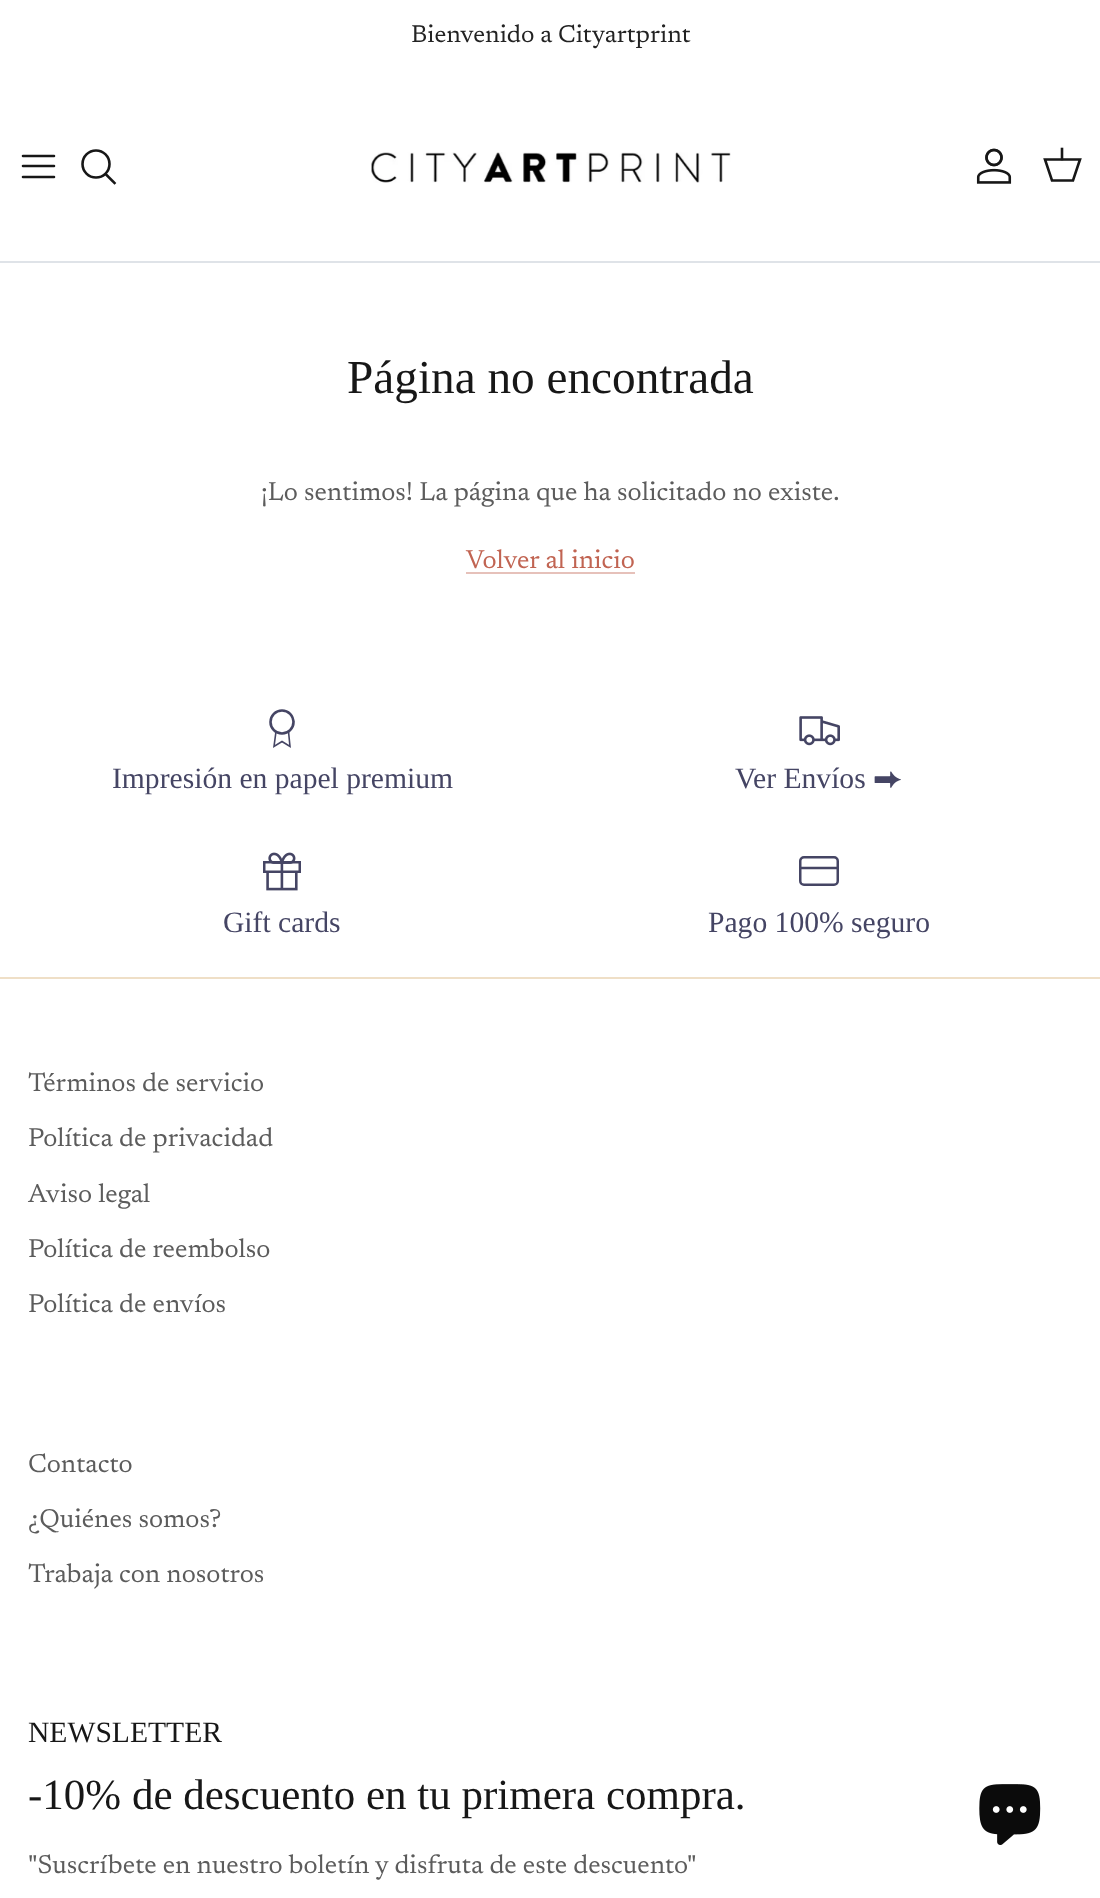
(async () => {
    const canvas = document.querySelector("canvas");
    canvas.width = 1100;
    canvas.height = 1898;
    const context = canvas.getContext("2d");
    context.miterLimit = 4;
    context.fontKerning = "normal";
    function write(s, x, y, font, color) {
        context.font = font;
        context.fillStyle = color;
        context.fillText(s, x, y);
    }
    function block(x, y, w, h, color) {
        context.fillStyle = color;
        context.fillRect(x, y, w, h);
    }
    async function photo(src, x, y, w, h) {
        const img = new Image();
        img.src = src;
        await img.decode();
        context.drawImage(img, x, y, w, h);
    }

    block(0, 0, 1100, 1898, "rgb(255, 255, 255)");
    write("Bienvenido a Cityartprint", 411, 42, "24.5px 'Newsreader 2'", "rgb(35, 35, 35)");
    block(0, 261, 1100, 2, "rgb(223, 227, 232)");
    context.beginPath();
    context.moveTo(23, 166);
    context.lineTo(54, 166);
    context.moveTo(23, 156);
    context.lineTo(54, 156);
    context.moveTo(23, 177);
    context.lineTo(54, 177);
    context.strokeStyle = "rgb(23, 23, 23)";
    context.lineWidth = 2.6;
    context.lineCap = "round";
    context.lineJoin = "round";
    context.stroke();
    context.beginPath();
    context.arc(96, 164, 13.5, 0, Math.PI * 2);
    context.stroke();
    context.beginPath();
    context.moveTo(106.5, 175);
    context.lineTo(114.5, 183);
    context.lineCap = "square";
    context.lineJoin = "miter";
    context.stroke();
    await photo("media/1.png", 371, 152, 360, 31);
    await photo("media/2.png", 976, 148, 36, 36);
    context.beginPath();
    context.moveTo(1045, 159.5);
    context.lineTo(1080, 159.5);
    context.lineTo(1073, 180.5);
    context.lineTo(1052, 180.5);
    context.closePath();
    context.lineCap = "butt";
    context.stroke();
    context.beginPath();
    context.moveTo(1062, 159);
    context.lineTo(1062, 149);
    context.lineCap = "square";
    context.stroke();
    write("Página no encontrada", 347, 393, "47.25px Liberation Serif", "rgb(23, 23, 23)");
    write("¡Lo sentimos! La página que ha solicitado no existe.", 261, 500, "26.25px Newsreader", "rgb(92, 92, 92)");
    write("Volver al inicio", 466, 568, "26.25px Newsreader", "rgb(193, 100, 82)");
    block(466, 572, 169, 2, "rgb(230, 193, 186)");
    context.beginPath();
    context.arc(282, 722, 11.5, 0, Math.PI * 2);
    context.strokeStyle = "rgb(69, 69, 100)";
    context.stroke();
    context.beginPath();
    context.moveTo(276, 731.5);
    context.lineTo(274, 746.5);
    context.lineTo(282, 741.5);
    context.lineTo(290, 746.5);
    context.lineTo(288.5, 731.5);
    context.lineWidth = 1.6;
    context.lineCap = "butt";
    context.stroke();
    write("Impresión en papel premium", 112, 788, "29.6px Liberation Serif", "rgb(69, 69, 100)");
    await photo("media/3.png", 799, 716, 41, 30);
    write("Ver Envíos", 735, 788, "29.6px Liberation Serif", "rgb(69, 69, 100)");
    write("⮕", 873, 788, "29.6px FreeSans", "rgb(69, 69, 100)");
    await photo("media/4.png", 263, 852, 38, 39);
    write("Gift cards", 223, 932, "29.6px Liberation Serif", "rgb(69, 69, 100)");
    context.beginPath();
    context.roundRect(800.25, 857.25, 37.5, 27.5, 3.75);
    context.lineWidth = 2.5;
    context.stroke();
    context.beginPath();
    context.moveTo(800.5, 868);
    context.lineTo(838, 868);
    context.lineWidth = 2.6;
    context.stroke();
    write("Pago 100% seguro", 708, 932, "29.6px Liberation Serif", "rgb(69, 69, 100)");
    block(0, 977, 1100, 2, "rgb(239, 223, 199)");
    write("Términos de servicio", 28, 1091, "26.25px Newsreader", "rgb(92, 92, 92)");
    write("Política de privacidad", 28, 1146, "26.25px Newsreader", "rgb(92, 92, 92)");
    write("Aviso legal", 28, 1202, "26.25px Newsreader", "rgb(92, 92, 92)");
    write("Política de reembolso", 28, 1257, "26.25px Newsreader", "rgb(92, 92, 92)");
    write("Política de envíos", 28, 1312, "26.25px Newsreader", "rgb(92, 92, 92)");
    write("Contacto", 28, 1472, "26.25px Newsreader", "rgb(92, 92, 92)");
    write("¿Quiénes somos?", 28, 1527, "26.25px Newsreader", "rgb(92, 92, 92)");
    write("Trabaja con nosotros", 28, 1582, "26.25px Newsreader", "rgb(92, 92, 92)");
    write("NEWSLETTER", 28, 1742, "29.6px Liberation Serif", "rgb(23, 23, 23)");
    write("-10% de descuento en tu primera compra.", 28, 1809, "43px Liberation Serif", "rgb(23, 23, 23)");
    write("\"Suscríbete en nuestro boletín y disfruta de este descuento\"", 28, 1873, "26.25px Newsreader", "rgb(92, 92, 92)");
    await photo("media/5.png", 979, 1784, 62, 61);
})();
